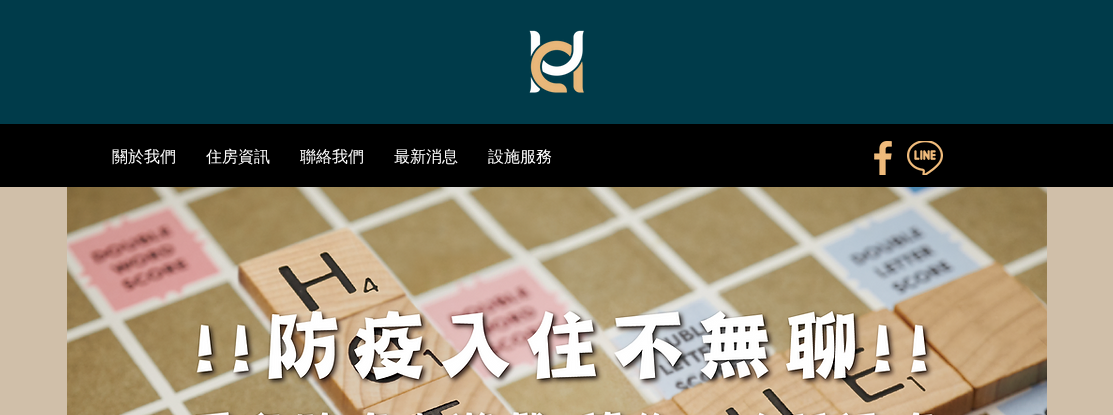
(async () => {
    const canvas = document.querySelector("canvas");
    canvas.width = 1113;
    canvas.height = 415;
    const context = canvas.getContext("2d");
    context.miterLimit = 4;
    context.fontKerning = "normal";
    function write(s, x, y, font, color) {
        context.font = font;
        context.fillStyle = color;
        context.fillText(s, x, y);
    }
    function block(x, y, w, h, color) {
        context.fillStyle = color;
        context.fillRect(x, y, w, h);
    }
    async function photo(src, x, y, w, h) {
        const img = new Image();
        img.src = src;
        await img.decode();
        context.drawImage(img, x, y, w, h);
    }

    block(0, 0, 1113, 415, "rgb(208, 191, 169)");
    block(0, 0, 1113, 124, "rgb(0, 59, 74)");
    await photo("media/1.png", 529, 30, 55, 63);
    block(0, 124, 1113, 63, "rgb(0, 0, 0)");
    write("關於我們", 112, 162, "500 16px WenQuanYi Zen Hei", "rgb(255, 255, 255)");
    write("住房資訊", 206, 162, "500 16px WenQuanYi Zen Hei", "rgb(255, 255, 255)");
    write("聯絡我們", 300, 162, "500 16px WenQuanYi Zen Hei", "rgb(255, 255, 255)");
    write("最新消息", 394, 162, "500 16px WenQuanYi Zen Hei", "rgb(255, 255, 255)");
    write("設施服務", 488, 162, "500 16px WenQuanYi Zen Hei", "rgb(255, 255, 255)");
    await photo("media/2.png", 874, 141, 18, 34);
    await photo("media/3.png", 907, 141, 36, 34);
    await photo("media/4.png", 67, 187, 980, 228);
})();
